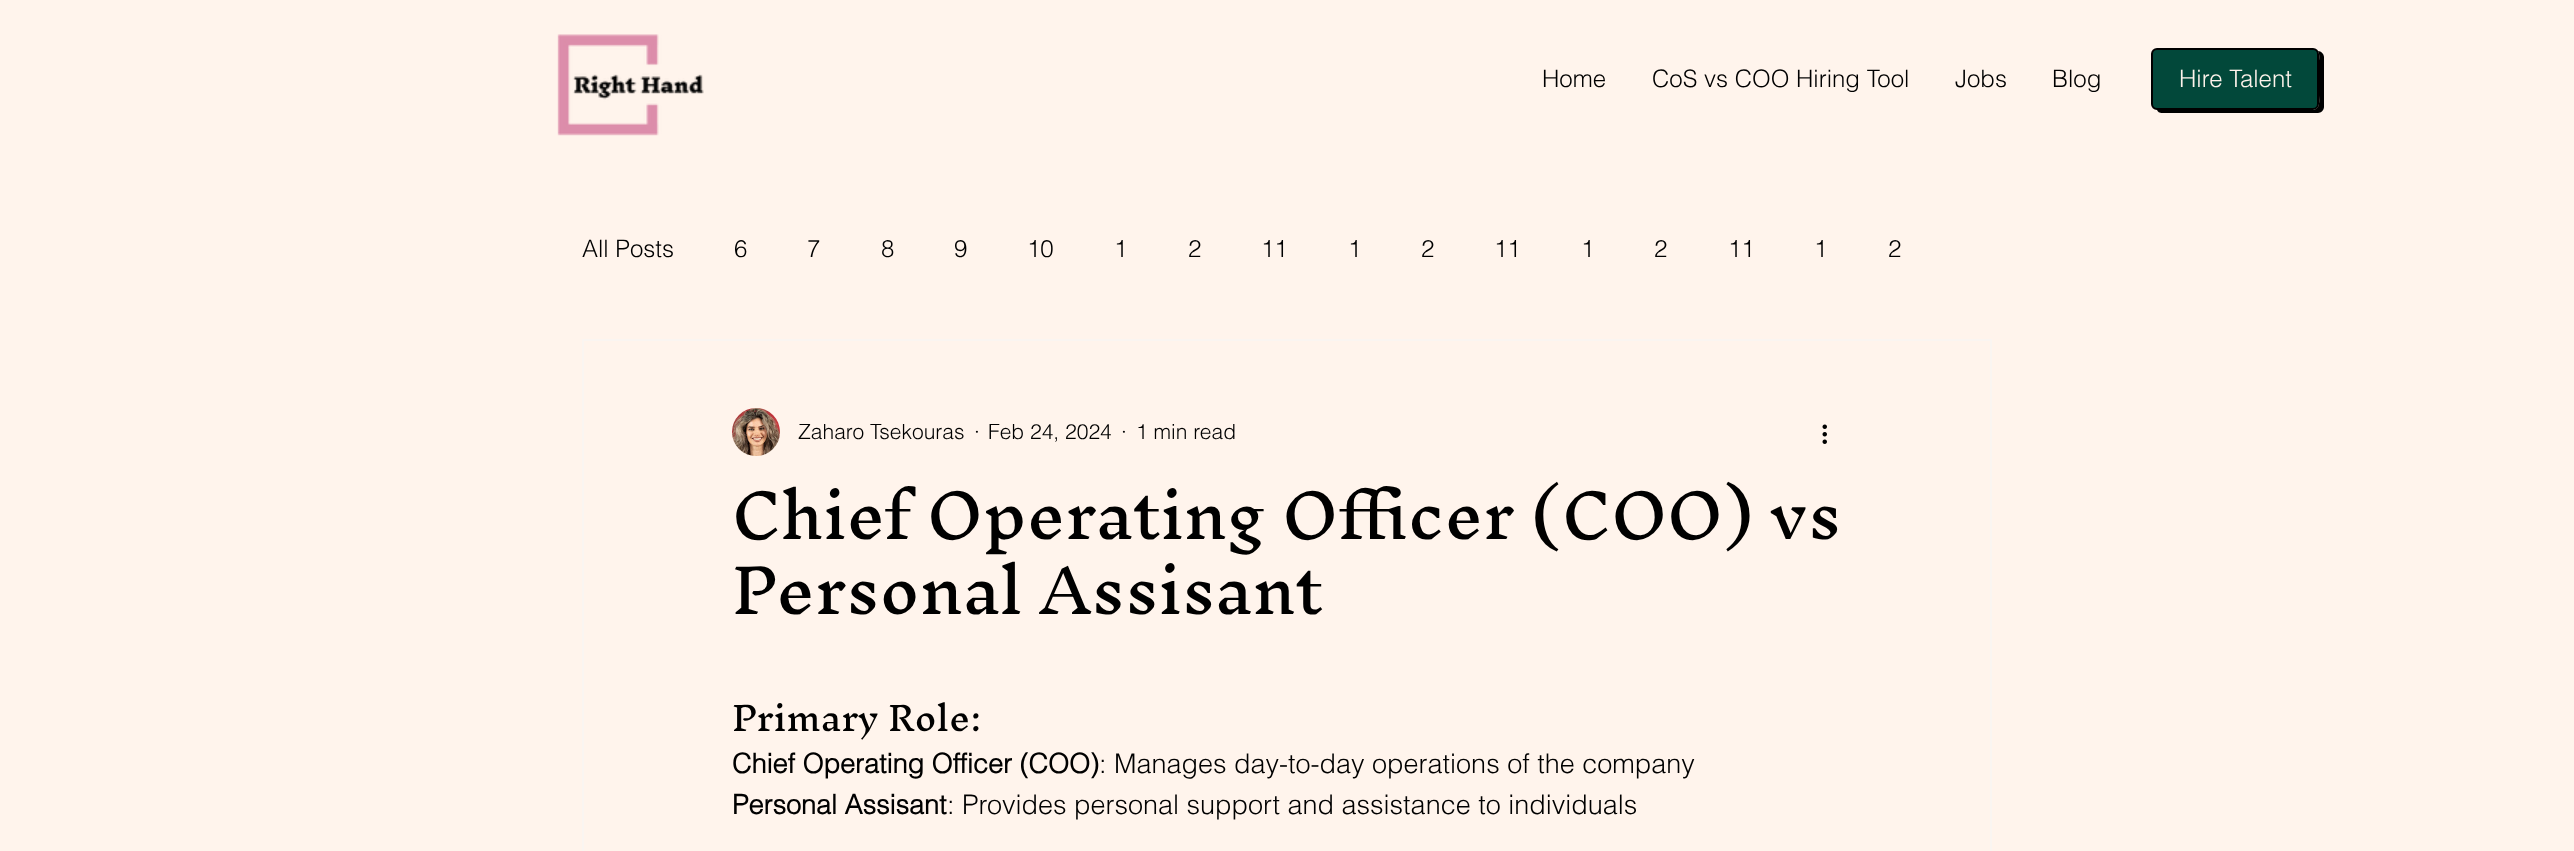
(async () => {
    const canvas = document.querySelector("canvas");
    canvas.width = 2574;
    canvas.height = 851;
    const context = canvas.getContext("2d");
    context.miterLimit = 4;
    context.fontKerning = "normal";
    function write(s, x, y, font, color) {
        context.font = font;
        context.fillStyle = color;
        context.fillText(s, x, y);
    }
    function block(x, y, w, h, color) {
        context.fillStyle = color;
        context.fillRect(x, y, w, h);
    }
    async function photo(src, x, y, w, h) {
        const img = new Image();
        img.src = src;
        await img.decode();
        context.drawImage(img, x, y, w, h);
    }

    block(0, 0, 2574, 851, "rgb(255, 244, 236)");
    await photo("media/1.png", 557, 34, 147, 102);
    write("Home", 1542, 87, "300 24px helvetica", "rgb(0, 0, 0)");
    write("CoS vs COO Hiring Tool", 1652, 87, "300 24px helvetica", "rgb(0, 0, 0)");
    write("Jobs", 1955, 87, "300 24px helvetica", "rgb(0, 0, 0)");
    write("Blog", 2052, 87, "300 24px helvetica", "rgb(0, 0, 0)");
    context.beginPath();
    context.moveTo(2157, 109);
    context.bezierCurveTo(2157, 112, 2160, 113, 2162, 113);
    context.lineTo(2318, 113);
    context.bezierCurveTo(2321, 113, 2324, 110, 2324, 107);
    context.lineTo(2324, 57);
    context.bezierCurveTo(2324, 54, 2321, 51, 2318, 51);
    context.bezierCurveTo(2320, 54, 2319, 60, 2319, 62);
    context.lineTo(2319, 95);
    context.bezierCurveTo(2319, 100, 2321, 109, 2313, 110);
    context.closePath();
    context.fill();
    context.fillStyle = "rgb(2, 72, 58)";
    context.beginPath();
    context.roundRect(2152, 49, 166, 60, 5);
    context.fill();
    context.strokeStyle = "rgb(0, 0, 0)";
    context.lineWidth = 2;
    context.stroke();
    write("Hire Talent", 2179, 87, "300 24px helvetica", "rgb(255, 244, 236)");
    write("All Posts", 582, 257, "300 24px helvetica", "rgb(0, 0, 0)");
    write("6", 734, 257, "300 24px helvetica", "rgb(0, 0, 0)");
    write("7", 807, 257, "300 24px helvetica", "rgb(0, 0, 0)");
    write("8", 881, 257, "300 24px helvetica", "rgb(0, 0, 0)");
    write("9", 954, 257, "300 24px helvetica", "rgb(0, 0, 0)");
    write("10", 1027, 257, "300 24px helvetica", "rgb(0, 0, 0)");
    write("1", 1114, 257, "300 24px helvetica", "rgb(0, 0, 0)");
    write("2", 1188, 257, "300 24px helvetica", "rgb(0, 0, 0)");
    write("11", 1261, 257, "300 24px helvetica", "rgb(0, 0, 0)");
    write("1", 1348, 257, "300 24px helvetica", "rgb(0, 0, 0)");
    write("2", 1421, 257, "300 24px helvetica", "rgb(0, 0, 0)");
    write("11", 1494, 257, "300 24px helvetica", "rgb(0, 0, 0)");
    write("1", 1581, 257, "300 24px helvetica", "rgb(0, 0, 0)");
    write("2", 1654, 257, "300 24px helvetica", "rgb(0, 0, 0)");
    write("11", 1728, 257, "300 24px helvetica", "rgb(0, 0, 0)");
    write("1", 1814, 257, "300 24px helvetica", "rgb(0, 0, 0)");
    write("2", 1888, 257, "300 24px helvetica", "rgb(0, 0, 0)");
    context.strokeStyle = "rgb(250, 245, 241)";
    context.strokeRect(583, 340, 1408, 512);
    await photo("media/2.png", 732, 408, 48, 48);
    write("Zaharo Tsekouras", 798, 439, "300 21px helvetica", "rgb(0, 0, 0)");
    write("·", 974, 439, "300 21px helvetica", "rgb(0, 0, 0)");
    write("Feb 24, 2024", 988, 439, "300 21px helvetica", "rgb(0, 0, 0)");
    write("·", 1121, 439, "300 21px helvetica", "rgb(0, 0, 0)");
    write("1 min read", 1136, 439, "300 21px helvetica", "rgb(0, 0, 0)");
    await photo("media/3.png", 1822, 424, 5, 20);
    write("Chief Operating Officer (COO) vs", 732, 539, "60px Inknut Antiqua", "rgb(0, 0, 0)");
    write("Personal Assisant", 732, 614, "60px Inknut Antiqua", "rgb(0, 0, 0)");
    write("Primary Role:", 732, 731, "33px Inknut Antiqua", "rgb(0, 0, 0)");
    write("Chief Operating Officer (COO)", 732, 773, "bold 27px helvetica", "rgb(0, 0, 0)");
    write(": Manages day-to-day operations of the company", 1099, 773, "300 27px helvetica", "rgb(0, 0, 0)");
    write("Personal Assisant", 732, 814, "bold 27px helvetica", "rgb(0, 0, 0)");
    write(": Provides personal support and assistance to individuals", 947, 814, "300 27px helvetica", "rgb(0, 0, 0)");
})();
